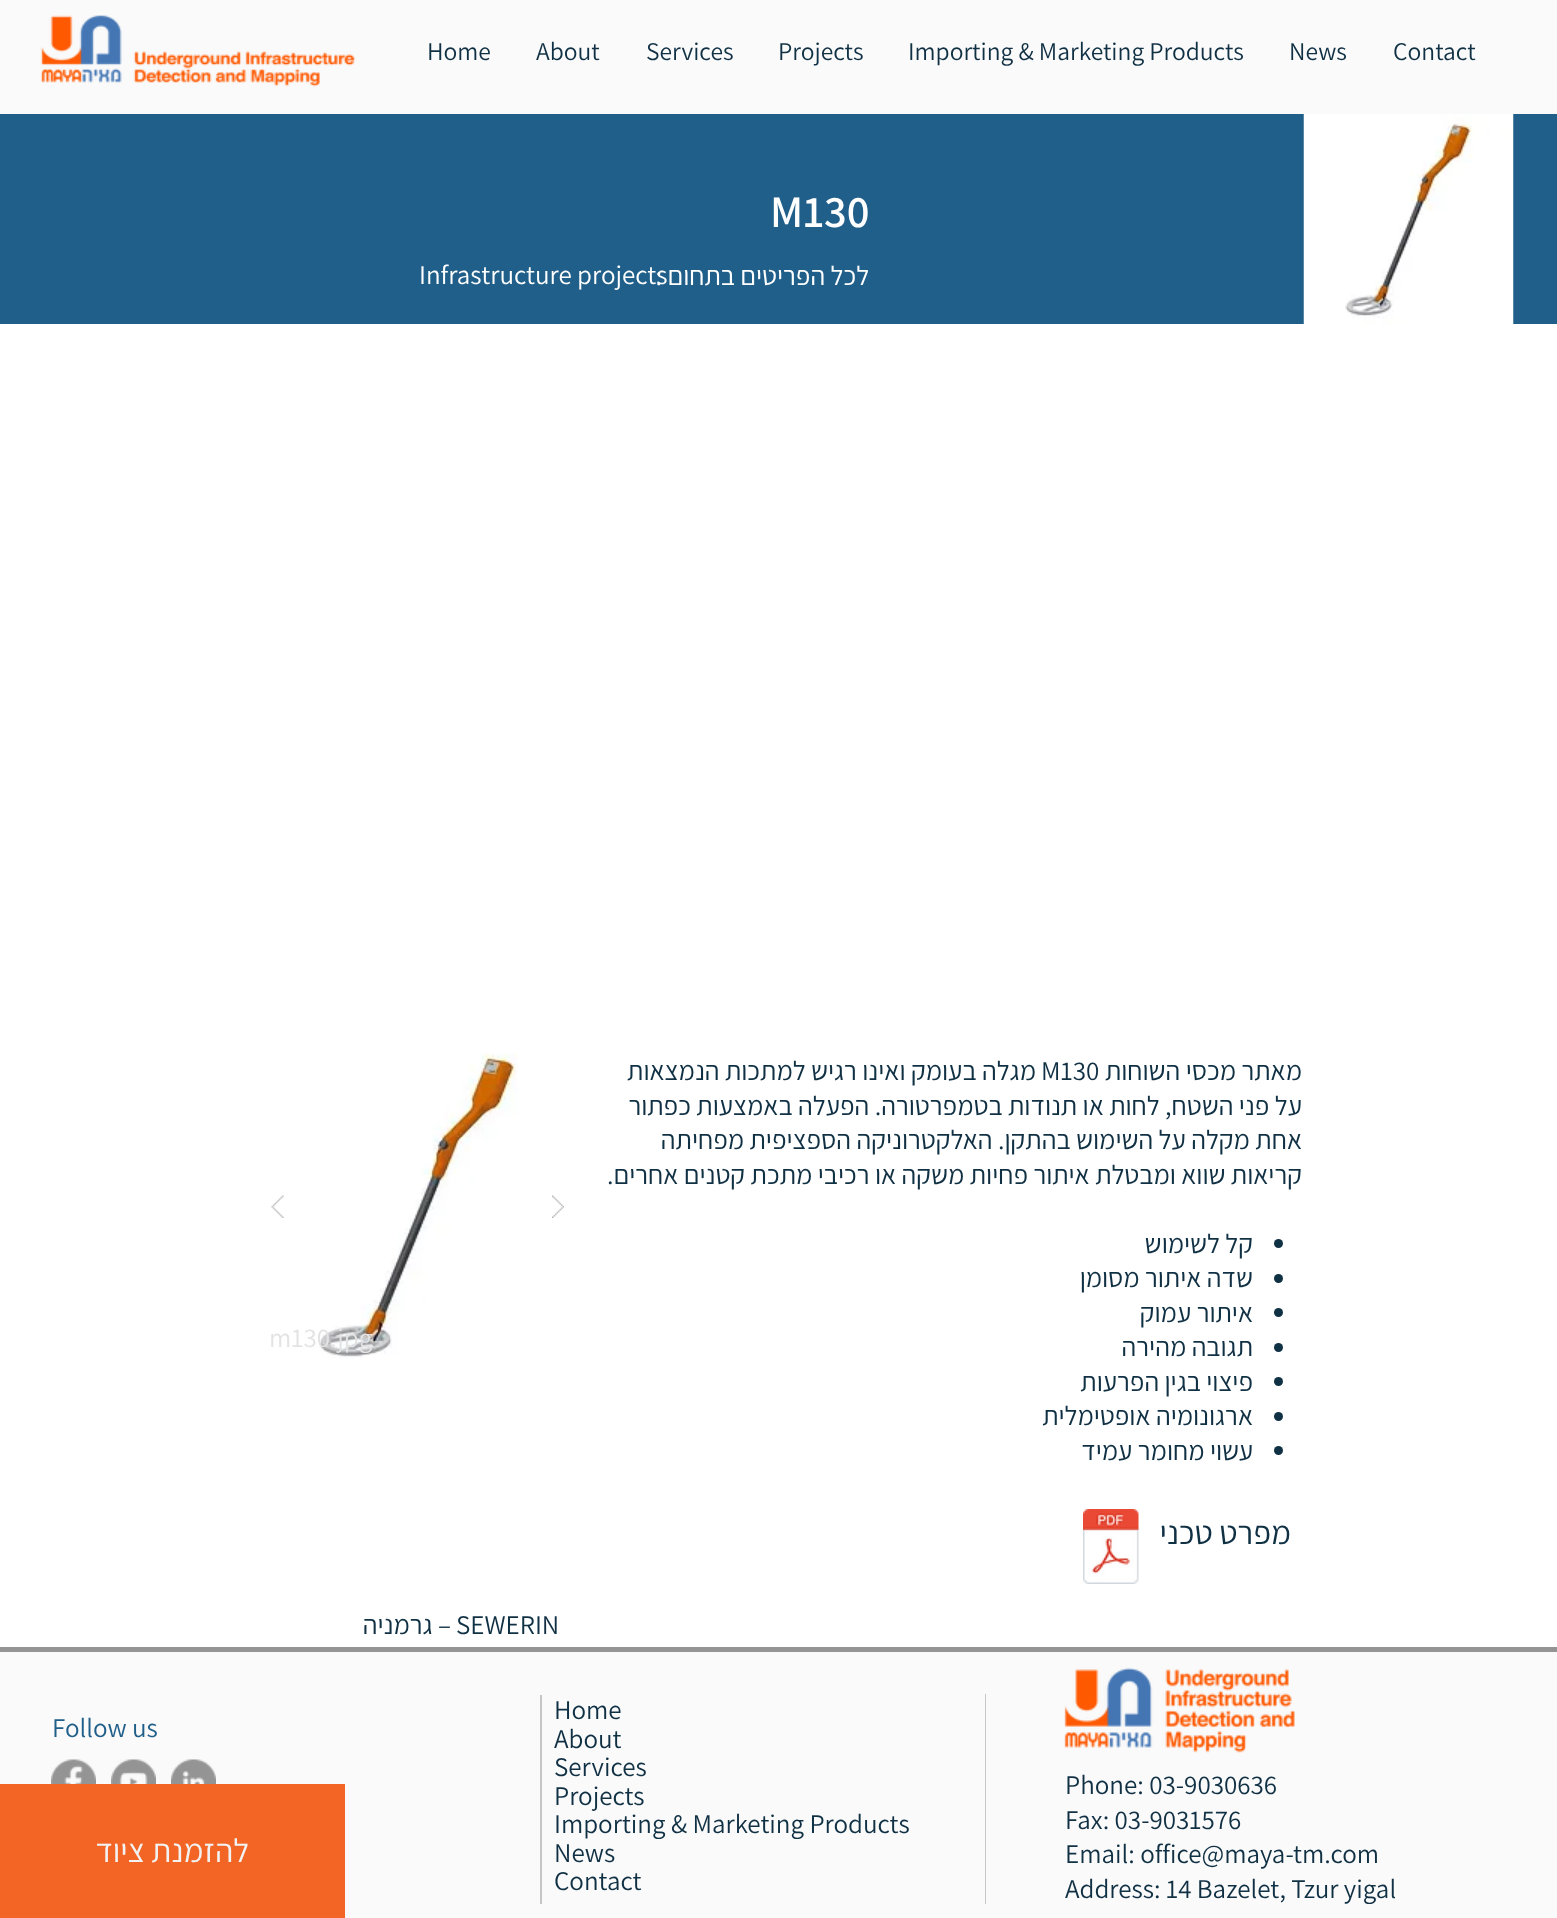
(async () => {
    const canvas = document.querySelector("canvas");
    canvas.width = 1557;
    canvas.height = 1918;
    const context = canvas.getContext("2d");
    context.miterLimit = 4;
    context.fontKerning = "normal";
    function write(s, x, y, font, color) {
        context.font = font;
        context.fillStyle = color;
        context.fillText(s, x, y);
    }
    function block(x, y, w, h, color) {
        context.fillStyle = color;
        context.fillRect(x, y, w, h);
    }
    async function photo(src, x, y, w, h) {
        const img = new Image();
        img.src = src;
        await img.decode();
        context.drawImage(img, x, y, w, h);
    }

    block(0, 0, 1557, 1918, "rgb(255, 255, 255)");
    block(0, 0, 1557, 114, "rgb(250, 250, 250)");
    write("Contact", 1393, 60, "25.5px Assistant", "rgb(16, 48, 68)");
    write("News", 1289, 60, "25.5px Assistant", "rgb(16, 48, 68)");
    write("Importing & Marketing Products", 908, 60, "25.5px Assistant", "rgb(16, 48, 68)");
    write("Projects", 778, 60, "25.5px Assistant", "rgb(16, 48, 68)");
    write("Services", 646, 60, "25.5px Assistant", "rgb(16, 48, 68)");
    write("About", 536, 60, "25.5px Assistant", "rgb(16, 48, 68)");
    write("Home", 427, 60, "25.5px Assistant", "rgb(16, 48, 68)");
    await photo("media/1.png", 40, 15, 316, 72);
    block(0, 114, 1557, 210, "rgb(32, 95, 137)");
    await photo("media/2.png", 1303, 114, 211, 210);
    write("M130", 770, 227, "600 45px Assistant", "rgb(255, 255, 255)");
    write("Infrastructure projects", 419, 284, "27px Assistant", "rgb(255, 255, 255)");
    context.direction = "rtl";
    write("לכל הפריטים בתחום :", 869, 285, "27px Assistant", "rgb(255, 255, 255)");
    write("מאתר מכסי השוחות", 1302, 1080, "27px Assistant", "rgb(16, 48, 68)");
    context.direction = "ltr";
    write("M130", 1041, 1080, "27px Assistant", "rgb(16, 48, 68)");
    context.direction = "rtl";
    write("מגלה בעומק ואינו רגיש למתכות הנמצאות", 1036, 1080, "27px Assistant", "rgb(16, 48, 68)");
    write("על פני השטח, לחות או תנודות בטמפרטורה. הפעלה באמצעות כפתור", 1302, 1115, "27px Assistant", "rgb(16, 48, 68)");
    write("אחת מקלה על השימוש בהתקן. האלקטרוניקה הספציפית מפחיתה", 1302, 1149, "27px Assistant", "rgb(16, 48, 68)");
    write("קריאות שווא ומבטלת איתור פחיות משקה או רכיבי מתכת קטנים אחרים.", 1302, 1184, "27px Assistant", "rgb(16, 48, 68)");
    context.beginPath();
    context.arc(1278.5, 1243.5, 4.5, 0, Math.PI * 2);
    context.fill();
    write("קל לשימוש", 1253, 1253, "27px Assistant", "rgb(16, 48, 68)");
    context.beginPath();
    context.arc(1278.5, 1278.5, 4.5, 0, Math.PI * 2);
    context.fill();
    write("שדה איתור מסומן", 1253, 1287, "27px Assistant", "rgb(16, 48, 68)");
    context.beginPath();
    context.arc(1278.5, 1312.5, 4.5, 0, Math.PI * 2);
    context.fill();
    write("איתור עמוק", 1253, 1322, "27px Assistant", "rgb(16, 48, 68)");
    context.beginPath();
    context.arc(1278.5, 1347.5, 4.5, 0, Math.PI * 2);
    context.fill();
    write("תגובה מהירה", 1253, 1356, "27px Assistant", "rgb(16, 48, 68)");
    context.beginPath();
    context.arc(1278.5, 1381.5, 4.5, 0, Math.PI * 2);
    context.fill();
    write("פיצוי בגין הפרעות", 1253, 1391, "27px Assistant", "rgb(16, 48, 68)");
    context.beginPath();
    context.arc(1278.5, 1416.5, 4.5, 0, Math.PI * 2);
    context.fill();
    write("ארגונומיה אופטימלית", 1253, 1425, "27px Assistant", "rgb(16, 48, 68)");
    context.beginPath();
    context.arc(1278.5, 1450.5, 4.5, 0, Math.PI * 2);
    context.fill();
    write("עשוי מחומר עמיד", 1253, 1460, "27px Assistant", "rgb(16, 48, 68)");
    await photo("media/3.png", 552, 1195, 12, 23);
    await photo("media/4.png", 271, 1195, 13, 23);
    await photo("media/5.png", 319, 1053, 199, 306);
    context.direction = "ltr";
    write("m130.jpg", 269, 1347, "27px Assistant", "rgb(227, 227, 228)");
    context.direction = "rtl";
    write("מפרט טכני", 1291, 1544, "33px Assistant", "rgb(16, 48, 68)");
    await photo("media/6.png", 1083, 1509, 56, 75);
    context.direction = "ltr";
    write("SEWERIN", 456, 1634, "27px Assistant", "rgb(16, 48, 68)");
    context.direction = "rtl";
    write("– גרמניה", 451, 1634, "27px Assistant", "rgb(16, 48, 68)");
    block(0, 1652, 1557, 266, "rgb(250, 250, 250)");
    block(0, 1784, 345, 134, "rgb(242, 101, 36)");
    write("להזמנת ציוד", 249, 1862, "33px Assistant", "rgb(242, 242, 242)");
    block(0, 1647, 1557, 5, "rgb(148, 148, 148)");
    block(985, 1694, 1, 210, "rgb(198, 198, 198)");
    context.direction = "ltr";
    write("Home", 554, 1719, "27px Assistant", "rgb(16, 48, 68)");
    write("About", 554, 1748, "27px Assistant", "rgb(16, 48, 68)");
    write("Services", 554, 1776, "27px Assistant", "rgb(16, 48, 68)");
    write("Projects", 554, 1805, "27px Assistant", "rgb(16, 48, 68)");
    write("Importing & Marketing Products", 554, 1833, "27px Assistant", "rgb(16, 48, 68)");
    write("News", 554, 1862, "27px Assistant", "rgb(16, 48, 68)");
    write("Contact", 554, 1890, "27px Assistant", "rgb(16, 48, 68)");
    block(540, 1695, 2, 209, "rgb(198, 198, 198)");
    write("Follow us", 52, 1737, "27px Assistant", "rgb(32, 95, 137)");
    await photo("media/7.png", 171, 1759, 45, 25);
    await photo("media/8.png", 111, 1759, 45, 25);
    await photo("media/9.png", 51, 1759, 45, 25);
    await photo("media/10.png", 1064, 1667, 231, 86);
    write("Phone: 03-9030636", 1065, 1794, "27px Assistant", "rgb(16, 48, 68)");
    write("Fax: 03-9031576", 1065, 1829, "27px Assistant", "rgb(16, 48, 68)");
    write("Email: office@maya-tm.com", 1065, 1863, "27px Assistant", "rgb(16, 48, 68)");
    write("Address: 14 Bazelet, Tzur yigal", 1065, 1898, "27px Assistant", "rgb(16, 48, 68)");
})();
